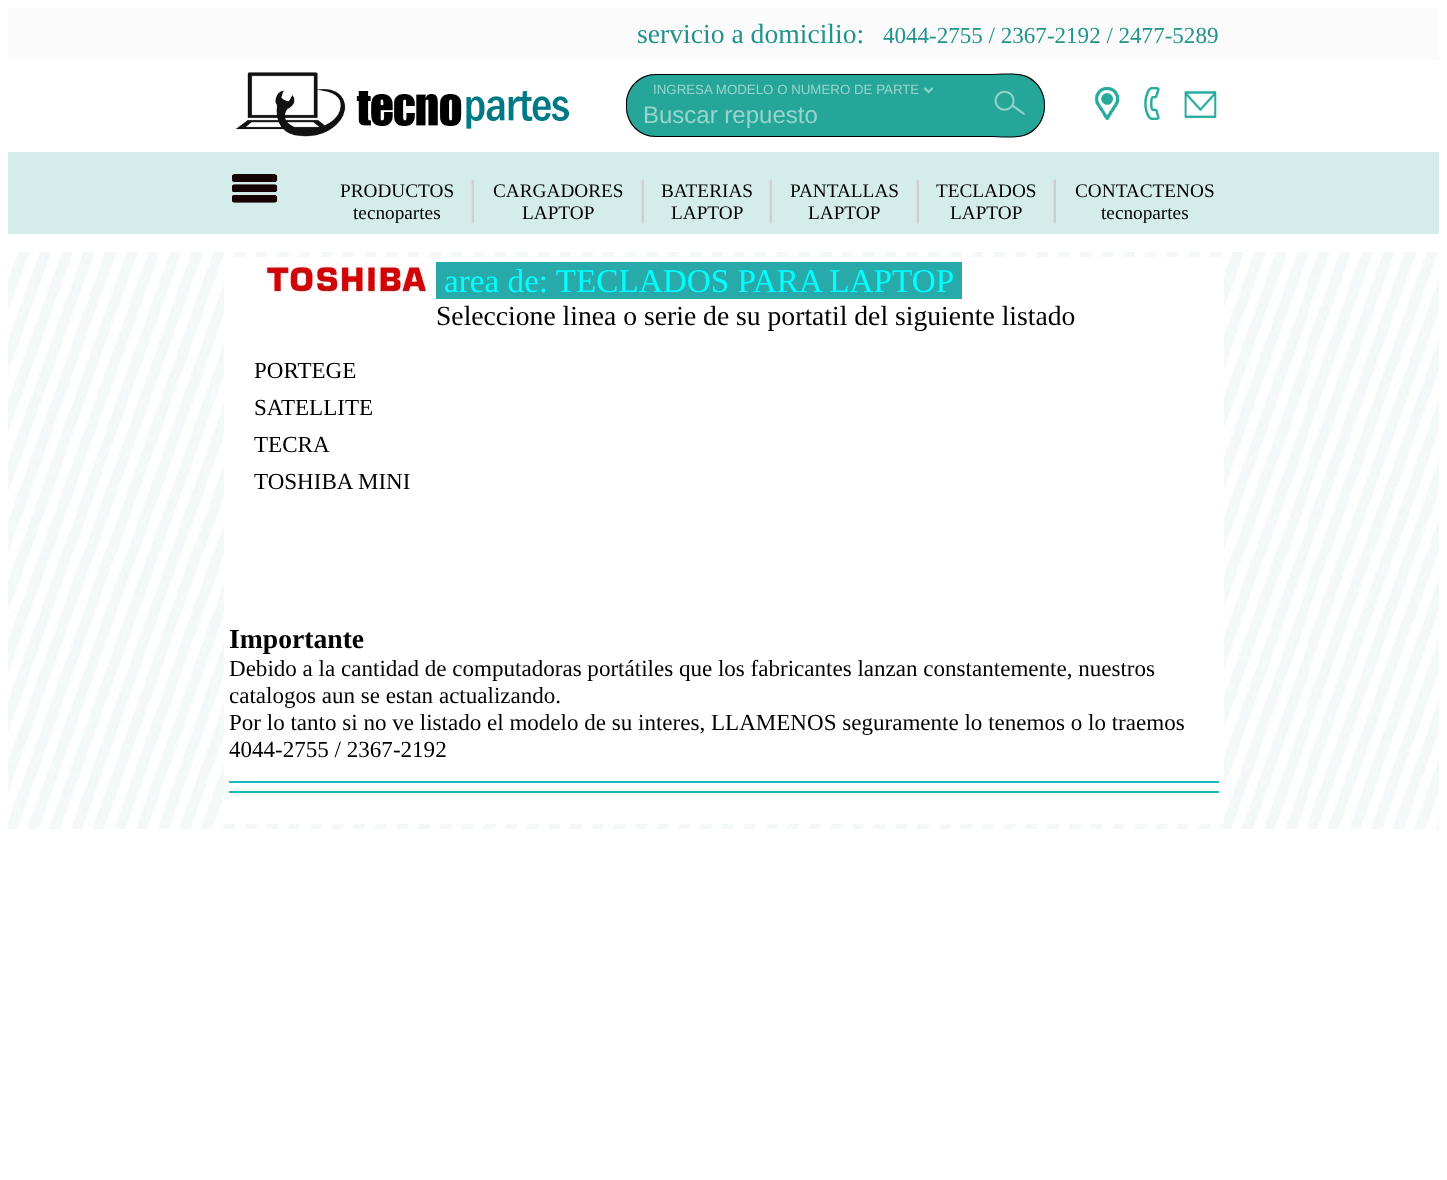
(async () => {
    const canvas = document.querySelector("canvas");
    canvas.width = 1447;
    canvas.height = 1180;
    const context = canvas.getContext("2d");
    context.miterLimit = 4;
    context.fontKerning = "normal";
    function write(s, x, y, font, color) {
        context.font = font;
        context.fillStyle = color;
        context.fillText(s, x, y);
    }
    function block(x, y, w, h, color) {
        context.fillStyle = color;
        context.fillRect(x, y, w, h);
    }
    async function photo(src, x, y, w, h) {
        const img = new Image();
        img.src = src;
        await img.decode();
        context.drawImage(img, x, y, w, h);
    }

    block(0, 0, 1447, 1180, "rgb(255, 255, 255)");
    block(8, 8, 1431, 52, "rgb(251, 251, 251)");
    write("servicio a domicilio:", 637, 43, "27.65px Liberation Serif", "rgb(33, 146, 140)");
    write("4044-2755 / 2367-2192 / 2477-5289", 883, 43, "23.05px Liberation Serif", "rgb(33, 146, 140)");
    await photo("media/1.png", 235, 72, 335, 65);
    context.fillStyle = "rgb(38, 166, 153)";
    context.beginPath();
    context.roundRect(626, 74, 362, 63, [30, 0, 0, 30]);
    context.fill();
    context.fillStyle = "rgb(0, 0, 0)";
    context.beginPath();
    context.moveTo(656, 74);
    context.lineTo(988, 74);
    context.lineTo(988, 137);
    context.lineTo(656, 137);
    context.bezierCurveTo(639, 137, 626, 124, 626, 107);
    context.lineTo(626, 104);
    context.bezierCurveTo(626, 87, 639, 74, 656, 74);
    context.closePath();
    context.moveTo(656, 75);
    context.lineTo(988, 75);
    context.lineTo(988, 136);
    context.lineTo(656, 136);
    context.bezierCurveTo(640, 136, 627, 123, 627, 107);
    context.lineTo(627, 104);
    context.bezierCurveTo(627, 88, 640, 75, 656, 75);
    context.closePath();
    context.fill("evenodd");
    context.beginPath();
    context.moveTo(924.5, 88);
    context.lineTo(928.5, 92);
    context.lineTo(932.5, 88);
    context.strokeStyle = "rgb(152, 212, 207)";
    context.lineWidth = 2;
    context.stroke();
    write("INGRESA MODELO O NUMERO DE PARTE", 653, 94, "13.3px Liberation Sans", "rgb(152, 212, 207)");
    write("Buscar repuesto", 643, 123, "24px Liberation Sans", "rgb(152, 212, 207)");
    context.fillStyle = "rgb(38, 166, 153)";
    context.beginPath();
    context.roundRect(988, 74, 57, 63, [0, 30, 30, 0]);
    context.fill();
    context.fillStyle = "rgb(0, 0, 0)";
    context.beginPath();
    context.moveTo(988, 74);
    context.bezierCurveTo(999, 74, 1017, 72, 1027, 76);
    context.bezierCurveTo(1051, 87, 1051, 124, 1027, 135);
    context.bezierCurveTo(1017, 139, 999, 137, 988, 137);
    context.closePath();
    context.moveTo(988, 75);
    context.bezierCurveTo(998, 75, 1017, 73, 1026, 77);
    context.bezierCurveTo(1050, 87, 1050, 124, 1026, 134);
    context.bezierCurveTo(1017, 138, 998, 136, 988, 136);
    context.closePath();
    context.fill("evenodd");
    await photo("media/2.png", 994, 90, 31, 25);
    await photo("media/3.png", 1094, 87, 26, 33);
    await photo("media/4.png", 1144, 87, 16, 33);
    await photo("media/5.png", 1184, 90, 33, 29);
    block(8, 152, 1431, 82, "rgb(212, 237, 235)");
    await photo("media/6.png", 232, 174, 46, 29);
    write("PRODUCTOS", 340, 197, "19.25px Liberation Serif", "rgb(0, 0, 0)");
    write("tecnopartes", 353, 219, "19.25px Liberation Serif", "rgb(0, 0, 0)");
    write("|", 468, 213, "48px Liberation Serif", "rgb(207, 207, 208)");
    write("CARGADORES", 493, 197, "19.25px Liberation Serif", "rgb(0, 0, 0)");
    write("LAPTOP", 522, 219, "19.25px Liberation Serif", "rgb(0, 0, 0)");
    write("|", 638, 213, "48px Liberation Serif", "rgb(207, 207, 208)");
    write("BATERIAS", 661, 197, "19.25px Liberation Serif", "rgb(0, 0, 0)");
    write("LAPTOP", 671, 219, "19.25px Liberation Serif", "rgb(0, 0, 0)");
    write("|", 766, 213, "48px Liberation Serif", "rgb(207, 207, 208)");
    write("PANTALLAS", 790, 197, "19.25px Liberation Serif", "rgb(0, 0, 0)");
    write("LAPTOP", 808, 219, "19.25px Liberation Serif", "rgb(0, 0, 0)");
    write("|", 913, 213, "48px Liberation Serif", "rgb(207, 207, 208)");
    write("TECLADOS", 936, 197, "19.25px Liberation Serif", "rgb(0, 0, 0)");
    write("LAPTOP", 950, 219, "19.25px Liberation Serif", "rgb(0, 0, 0)");
    write("|", 1050, 213, "48px Liberation Serif", "rgb(207, 207, 208)");
    write("CONTACTENOS", 1075, 197, "19.25px Liberation Serif", "rgb(0, 0, 0)");
    write("tecnopartes", 1101, 219, "19.25px Liberation Serif", "rgb(0, 0, 0)");
    await photo("media/7.png", 8, 252, 1431, 577);
    block(224, 257, 1000, 567, "rgb(255, 255, 255)");
    await photo("media/8.png", 266, 262, 160, 32);
    block(436, 262, 526, 37, "rgb(40, 170, 170)");
    write("area de: TECLADOS PARA LAPTOP", 444, 292, "33.2px Liberation Serif", "rgb(0, 255, 255)");
    write("Seleccione linea o serie de su portatil del siguiente listado", 436, 325, "27.65px Liberation Serif", "rgb(0, 0, 0)");
    write("PORTEGE", 254, 378, "23.05px Liberation Serif", "rgb(0, 0, 0)");
    write("SATELLITE", 254, 415, "23.05px Liberation Serif", "rgb(0, 0, 0)");
    write("TECRA", 254, 452, "23.05px Liberation Serif", "rgb(0, 0, 0)");
    write("TOSHIBA MINI", 254, 489, "23.05px Liberation Serif", "rgb(0, 0, 0)");
    write("Importante", 229, 648, "bold 27.65px Liberation Serif", "rgb(0, 0, 0)");
    write("Debido a la cantidad de computadoras portátiles que los fabricantes lanzan constantemente, nuestros", 229, 676, "23.05px Liberation Serif", "rgb(0, 0, 0)");
    write("catalogos aun se estan actualizando.", 229, 703, "23.05px Liberation Serif", "rgb(0, 0, 0)");
    write("Por lo tanto si no ve listado el modelo de su interes, LLAMENOS seguramente lo tenemos o lo traemos", 229, 730, "23.05px Liberation Serif", "rgb(0, 0, 0)");
    write("4044-2755 / 2367-2192", 229, 757, "23.05px Liberation Serif", "rgb(0, 0, 0)");
    block(229, 781, 990, 2, "rgb(19, 186, 184)");
    block(229, 791, 990, 2, "rgb(19, 186, 184)");
})();
